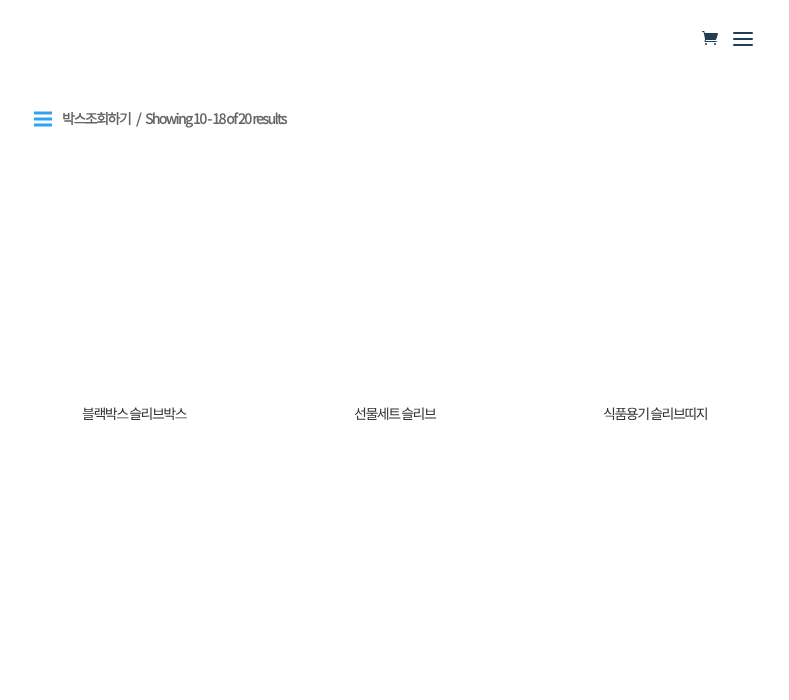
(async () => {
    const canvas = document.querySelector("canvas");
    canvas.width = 789;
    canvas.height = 700;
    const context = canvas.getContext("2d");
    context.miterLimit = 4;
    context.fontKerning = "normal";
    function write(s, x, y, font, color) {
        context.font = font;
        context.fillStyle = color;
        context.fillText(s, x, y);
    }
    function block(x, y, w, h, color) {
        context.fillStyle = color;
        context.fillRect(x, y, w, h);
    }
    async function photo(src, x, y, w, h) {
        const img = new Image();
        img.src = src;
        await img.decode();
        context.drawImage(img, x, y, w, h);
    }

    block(0, 0, 789, 700, "rgb(255, 255, 255)");
    await photo("media/1.png", 702, 31, 16, 14);
    await photo("media/2.png", 733, 32, 20, 14);
    await photo("media/3.png", 34, 111, 18, 16);
    context.letterSpacing = "-1.5px";
    write("박스조회하기", 62, 124, "bold 14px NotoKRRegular", "rgb(102, 102, 102)");
    write("/", 136, 124, "bold 14px NotoKRRegular", "rgb(102, 102, 102)");
    write("Showing 10 - 18 of 20 results", 145, 124, "bold 14px NotoKRRegular", "rgb(102, 102, 102)");
    write("블랙박스 슬리브박스", 82, 419, "14px NotoKRRegular", "rgb(51, 51, 51)");
    write("선물세트 슬리브", 354, 419, "14px NotoKRRegular", "rgb(51, 51, 51)");
    write("식품용기 슬리브띠지", 603, 419, "14px NotoKRRegular", "rgb(51, 51, 51)");
})();
